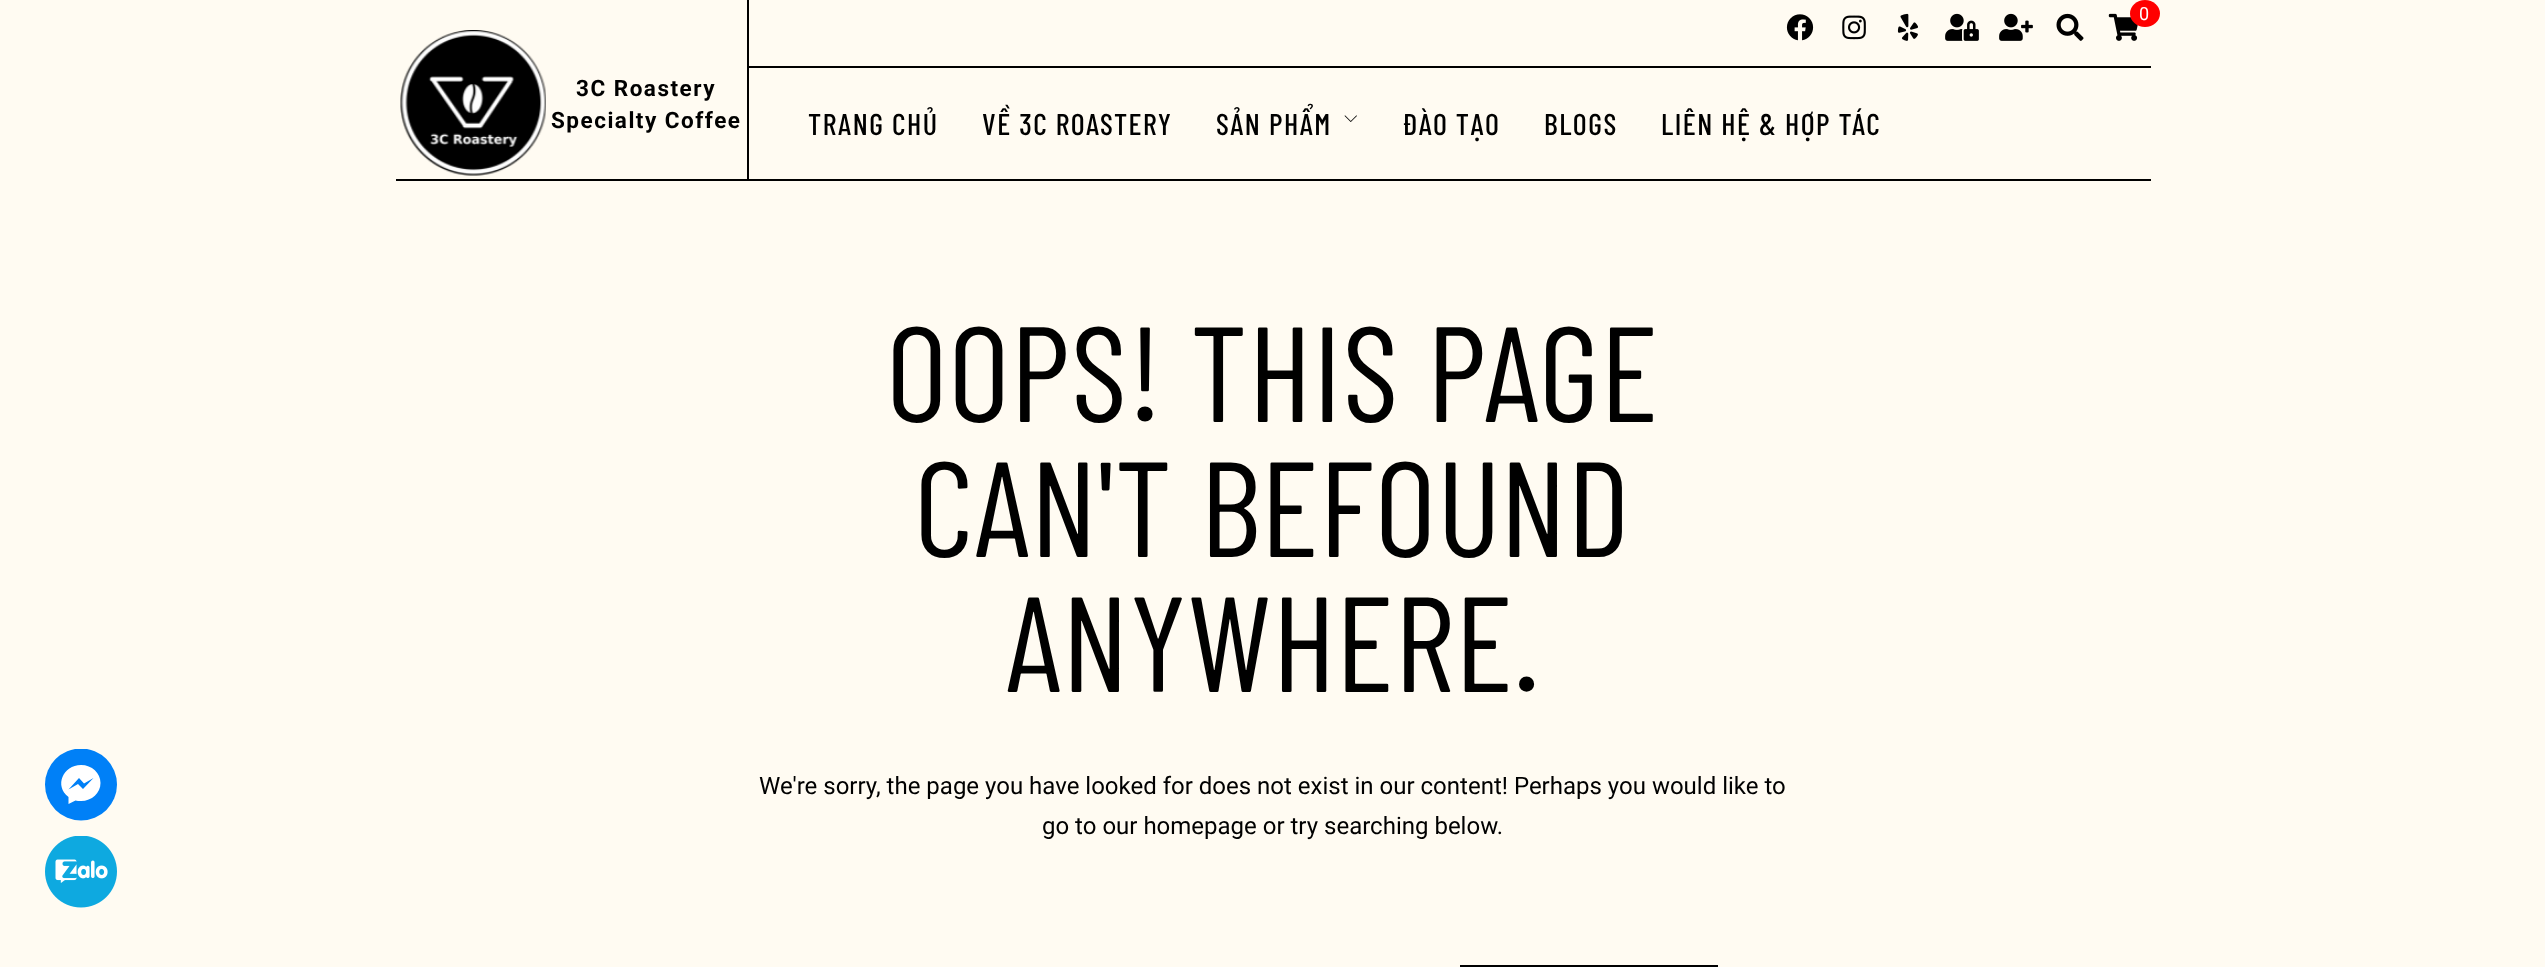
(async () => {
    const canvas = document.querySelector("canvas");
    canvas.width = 2545;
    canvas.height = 967;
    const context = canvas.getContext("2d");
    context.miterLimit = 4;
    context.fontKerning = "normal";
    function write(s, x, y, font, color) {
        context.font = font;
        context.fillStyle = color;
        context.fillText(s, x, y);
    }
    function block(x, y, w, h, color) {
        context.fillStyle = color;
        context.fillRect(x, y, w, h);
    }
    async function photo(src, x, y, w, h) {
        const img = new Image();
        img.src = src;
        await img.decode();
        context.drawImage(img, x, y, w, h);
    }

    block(0, 0, 2545, 967, "rgb(255, 251, 242)");
    context.save();
    context.beginPath();
    context.rect(45, 749, 72, 72);
    context.clip();
    context.fillStyle = "rgb(0, 128, 247)";
    context.beginPath();
    context.arc(81, 784.5, 36, 0, Math.PI * 2);
    context.fill();
    context.restore();
    context.fillStyle = "rgb(255, 255, 255)";
    context.beginPath();
    context.moveTo(81, 765);
    context.bezierCurveTo(63, 765, 54, 786, 68.5, 797);
    context.lineTo(68.5, 804);
    context.lineTo(75.5, 800.5);
    context.bezierCurveTo(77, 801, 79, 801, 81, 801);
    context.bezierCurveTo(92, 801, 100.5, 793, 100.5, 783);
    context.bezierCurveTo(100.5, 773, 92, 765, 81, 765);
    context.closePath();
    context.moveTo(83, 789);
    context.lineTo(78, 784);
    context.lineTo(68.5, 789.5);
    context.lineTo(79, 778);
    context.lineTo(84, 783.5);
    context.lineTo(93.5, 778);
    context.closePath();
    context.fill();
    await photo("media/1.png", 45, 836, 72, 72);
    block(396, 179, 1755, 2, "rgb(0, 0, 0)");
    await photo("media/2.png", 400, 30, 146, 146);
    context.letterSpacing = "1.5px";
    write("3C Roastery", 576, 96, "bold 22.5px Roboto", "rgb(0, 0, 0)");
    write("Specialty Coffee", 551, 128, "bold 22.5px Roboto", "rgb(0, 0, 0)");
    block(747, 0, 2, 66, "rgb(0, 0, 0)");
    await photo("media/3.png", 1786, 14, 28, 27);
    await photo("media/4.png", 1842, 15, 24, 25);
    await photo("media/5.png", 1897, 13, 21, 28);
    await photo("media/6.png", 1945, 13, 34, 28);
    await photo("media/7.png", 1999, 13, 34, 28);
    await photo("media/8.png", 2056, 13, 28, 28);
    await photo("media/9.png", 2108, 13, 30, 28);
    context.fillStyle = "rgb(255, 0, 0)";
    context.beginPath();
    context.ellipse(2145, 13.5, 15, 13.5, 0, 0, Math.PI * 2);
    context.fill();
    context.letterSpacing = "0px";
    write("0", 2139, 20, "18px Roboto", "rgb(255, 255, 255)");
    block(747, 66, 1404, 2, "rgb(0, 0, 0)");
    block(747, 66, 2, 114, "rgb(0, 0, 0)");
    context.letterSpacing = "1.5px";
    write("TRANG CHỦ", 808, 135, "500 30px Barlow Condensed", "rgb(0, 0, 0)");
    write("VỀ 3C ROASTERY", 982, 135, "500 30px Barlow Condensed", "rgb(0, 0, 0)");
    write("SẢN PHẨM", 1216, 135, "500 30px Barlow Condensed", "rgb(0, 0, 0)");
    await photo("media/10.png", 1344, 115, 13, 7);
    write("ĐÀO TẠO", 1402, 135, "500 30px Barlow Condensed", "rgb(0, 0, 0)");
    write("BLOGS", 1544, 135, "500 30px Barlow Condensed", "rgb(0, 0, 0)");
    write("LIÊN HỆ & HỢP TÁC", 1661, 135, "500 30px Barlow Condensed", "rgb(0, 0, 0)");
    context.letterSpacing = "0.75px";
    write("OOPS! THIS PAGE", 886, 422, "135px Barlow Condensed", "rgb(0, 0, 0)");
    write("CAN'T BEFOUND", 914, 557, "135px Barlow Condensed", "rgb(0, 0, 0)");
    write("ANYWHERE.", 1006, 692, "135px Barlow Condensed", "rgb(0, 0, 0)");
    context.letterSpacing = "0px";
    write("We're sorry, the page you have looked for does not exist in our content! Perhaps you would like to", 759, 794, "24px Roboto", "rgb(0, 0, 0)");
    write("go to our homepage or try searching below.", 1042, 834, "24px Roboto", "rgb(0, 0, 0)");
    block(1460, 965, 258, 2, "rgb(0, 0, 0)");
})();
